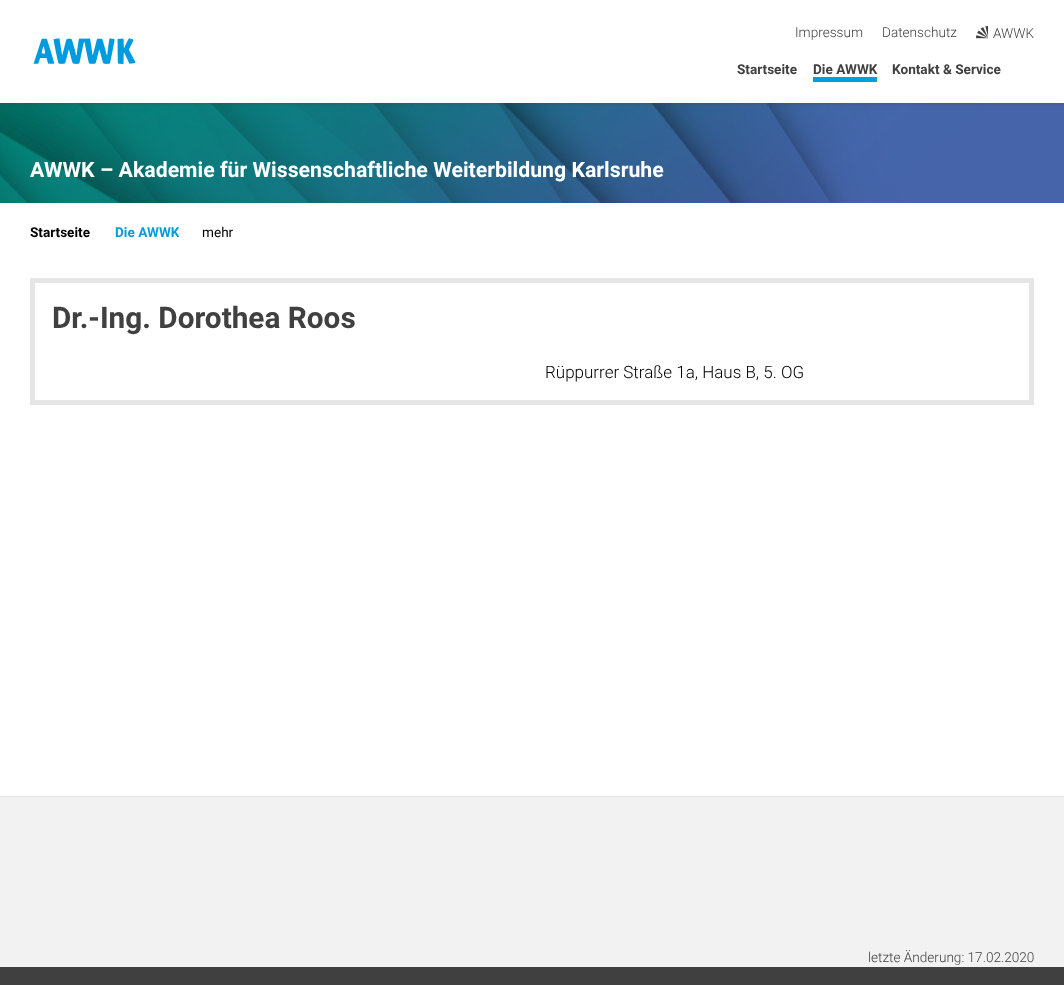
(async () => {
    const canvas = document.querySelector("canvas");
    canvas.width = 1064;
    canvas.height = 985;
    const context = canvas.getContext("2d");
    context.miterLimit = 4;
    context.fontKerning = "normal";
    function write(s, x, y, font, color) {
        context.font = font;
        context.fillStyle = color;
        context.fillText(s, x, y);
    }
    function block(x, y, w, h, color) {
        context.fillStyle = color;
        context.fillRect(x, y, w, h);
    }
    async function photo(src, x, y, w, h) {
        const img = new Image();
        img.src = src;
        await img.decode();
        context.drawImage(img, x, y, w, h);
    }

    block(0, 0, 1064, 985, "rgb(255, 255, 255)");
    await photo("media/3.png", 0, 103, 1064, 100);
    context.save();
    context.beginPath();
    context.rect(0, 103, 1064, 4);
    context.clip();
    context.fillStyle = "rgba(64, 64, 64, 0.5)";
    context.filter = "blur(2.5px)";
    context.beginPath();
    context.rect(0, 0, 1064, 103);
    context.fill();
    context.filter = "none";
    context.restore();
    await photo("media/1.png", 33, 38, 103, 26);
    write("Impressum", 795, 37, "300 13.6px Roboto", "rgb(64, 64, 64)");
    write("Datenschutz", 882, 37, "300 13.6px Roboto", "rgb(64, 64, 64)");
    await photo("media/2.png", 976, 26, 12, 13);
    write("AWWK", 993, 38, "300 13.6px Roboto", "rgb(64, 64, 64)");
    write("Startseite", 737, 74, "bold 13.6px Roboto", "rgb(64, 64, 64)");
    write("Die AWWK", 813, 74, "bold 13.6px Roboto", "rgb(64, 64, 64)");
    block(813, 77, 64, 5, "rgb(0, 157, 224)");
    write("Kontakt & Service", 892, 74, "bold 13.6px Roboto", "rgb(64, 64, 64)");
    write("AWWK – Akademie für Wissenschaftliche Weiterbildung Karlsruhe", 30, 177, "bold 21.25px Roboto", "rgb(255, 255, 255)");
    write("Startseite", 30, 237, "bold 13.6px Roboto", "rgb(0, 0, 0)");
    write("Die AWWK", 115, 237, "bold 13.6px Roboto", "rgb(0, 157, 224)");
    write("mehr", 202, 237, "13.6px Roboto", "rgb(0, 0, 0)");
    context.strokeStyle = "rgb(230, 230, 230)";
    context.lineWidth = 5;
    context.strokeRect(32.5, 280.5, 999, 122);
    write("Dr.-Ing. Dorothea Roos", 52, 328, "bold 29.75px Roboto", "rgb(64, 64, 64)");
    write("Rüppurrer Straße 1a, Haus B, 5. OG", 545, 378, "300 17px Roboto", "rgb(0, 0, 0)");
    block(0, 797, 1064, 170, "rgb(242, 242, 242)");
    block(0, 796, 1064, 1, "rgb(230, 230, 230)");
    write("letzte Änderung: 17.02.2020", 868, 962, "300 13.6px Roboto", "rgb(64, 64, 64)");
    block(0, 967, 1064, 18, "rgb(64, 64, 64)");
})();
